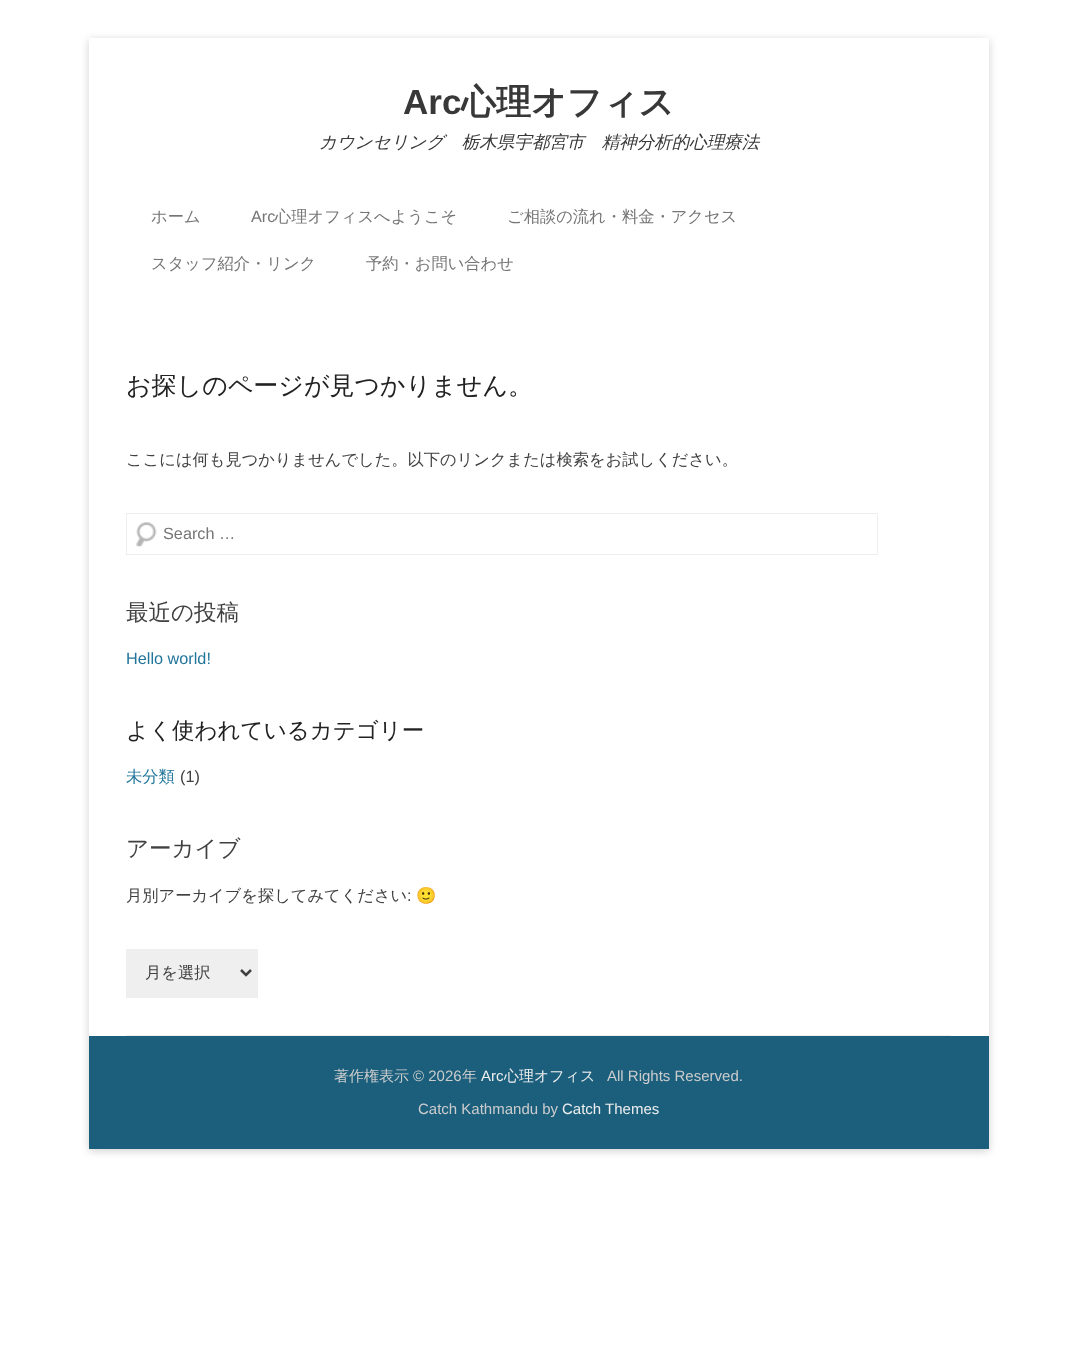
(async () => {
    const canvas = document.querySelector("canvas");
    canvas.width = 1077;
    canvas.height = 1360;
    const context = canvas.getContext("2d");
    context.miterLimit = 4;
    context.fontKerning = "normal";
    function write(s, x, y, font, color) {
        context.font = font;
        context.fillStyle = color;
        context.fillText(s, x, y);
    }
    function block(x, y, w, h, color) {
        context.fillStyle = color;
        context.fillRect(x, y, w, h);
    }
    async function photo(src, x, y, w, h) {
        const img = new Image();
        img.src = src;
        await img.decode();
        context.drawImage(img, x, y, w, h);
    }

    block(0, 0, 1077, 1360, "rgb(255, 255, 255)");
    context.fillStyle = "rgba(100, 100, 100, 0.3)";
    context.filter = "blur(4px)";
    context.beginPath();
    context.rect(89, 40, 900, 1111);
    context.fill();
    context.filter = "none";
    block(89, 38, 900, 998, "rgb(255, 255, 255)");
    write("Arc", 403, 114, "bold 35px Liberation Sans", "rgb(56, 56, 56)");
    write("心理オフィス", 461, 114, "bold 35px WenQuanYi Zen Hei", "rgb(56, 56, 56)");
    write("カウンセリング　栃木県宇都宮市　精神分析的心理療法", 319, 148, "italic 500 17.5px WenQuanYi Zen Hei", "rgb(56, 56, 56)");
    write("ホーム", 151, 222, "500 16.25px WenQuanYi Zen Hei", "rgb(117, 117, 117)");
    write("Arc", 251, 222, "16.25px Liberation Sans", "rgb(117, 117, 117)");
    write("心理オフィスへようこそ", 275, 222, "500 16.25px WenQuanYi Zen Hei", "rgb(117, 117, 117)");
    write("ご相談の流れ・料金・アクセス", 507, 222, "500 16.25px WenQuanYi Zen Hei", "rgb(117, 117, 117)");
    write("スタッフ紹介・リンク", 151, 269, "500 16.25px WenQuanYi Zen Hei", "rgb(117, 117, 117)");
    write("予約・お問い合わせ", 366, 269, "500 16.25px WenQuanYi Zen Hei", "rgb(117, 117, 117)");
    block(126, 1035, 825, 1, "rgb(238, 238, 238)");
    write("お探しのページが見つかりません。", 126, 394, "500 25px WenQuanYi Zen Hei", "rgb(34, 34, 34)");
    write("ここには何も見つかりませんでした。以下のリンクまたは検索をお試しください。", 126, 465, "500 16.25px WenQuanYi Zen Hei", "rgb(64, 64, 64)");
    await photo("media/1.png", 136, 521, 21, 26);
    context.strokeStyle = "rgb(238, 238, 238)";
    context.strokeRect(126.5, 513.5, 751, 41);
    write("Search …", 163, 539, "16.25px Liberation Sans", "rgb(117, 117, 117)");
    write("最近の投稿", 126, 620, "500 22.5px WenQuanYi Zen Hei", "rgb(64, 64, 64)");
    write("Hello world!", 126, 664, "16.25px Liberation Sans", "rgb(33, 117, 155)");
    write("よく使われているカテゴリー", 126, 738, "500 22.5px WenQuanYi Zen Hei", "rgb(34, 34, 34)");
    write("未分類", 126, 782, "500 16.25px WenQuanYi Zen Hei", "rgb(33, 117, 155)");
    write("(1)", 180, 782, "16.25px Liberation Sans", "rgb(64, 64, 64)");
    write("アーカイブ", 126, 856, "500 22.5px WenQuanYi Zen Hei", "rgb(64, 64, 64)");
    write("月別アーカイブを探してみてください", 126, 901, "500 16.25px WenQuanYi Zen Hei", "rgb(64, 64, 64)");
    write(":", 407, 901, "16.25px Liberation Sans", "rgb(64, 64, 64)");
    write("🙂", 416, 901, "16.25px Noto Color Emoji", "rgb(64, 64, 64)");
    block(126, 949, 132, 49, "rgb(239, 239, 239)");
    context.beginPath();
    context.moveTo(241, 970);
    context.lineTo(246, 975);
    context.lineTo(251, 970);
    context.strokeStyle = "rgb(64, 64, 64)";
    context.lineWidth = 2.5;
    context.stroke();
    write("月を選択", 145, 978, "500 16.25px WenQuanYi Zen Hei", "rgb(64, 64, 64)");
    block(89, 1036, 900, 113, "rgb(27, 95, 125)");
    write("著作権表示", 334, 1081, "500 15px WenQuanYi Zen Hei", "rgb(204, 204, 204)");
    write("© 2026", 413, 1081, "15px Liberation Sans", "rgb(204, 204, 204)");
    write("年", 462, 1081, "500 15px WenQuanYi Zen Hei", "rgb(204, 204, 204)");
    write("Arc", 481, 1081, "15px Liberation Sans", "rgb(238, 238, 238)");
    write("心理オフィス", 504, 1081, "500 15px WenQuanYi Zen Hei", "rgb(238, 238, 238)");
    write("All Rights Reserved.", 607, 1081, "15px Liberation Sans", "rgb(204, 204, 204)");
    write("Catch Kathmandu by", 418, 1114, "15px Liberation Sans", "rgb(204, 204, 204)");
    write("Catch Themes", 562, 1114, "15px Liberation Sans", "rgb(238, 238, 238)");
})();
